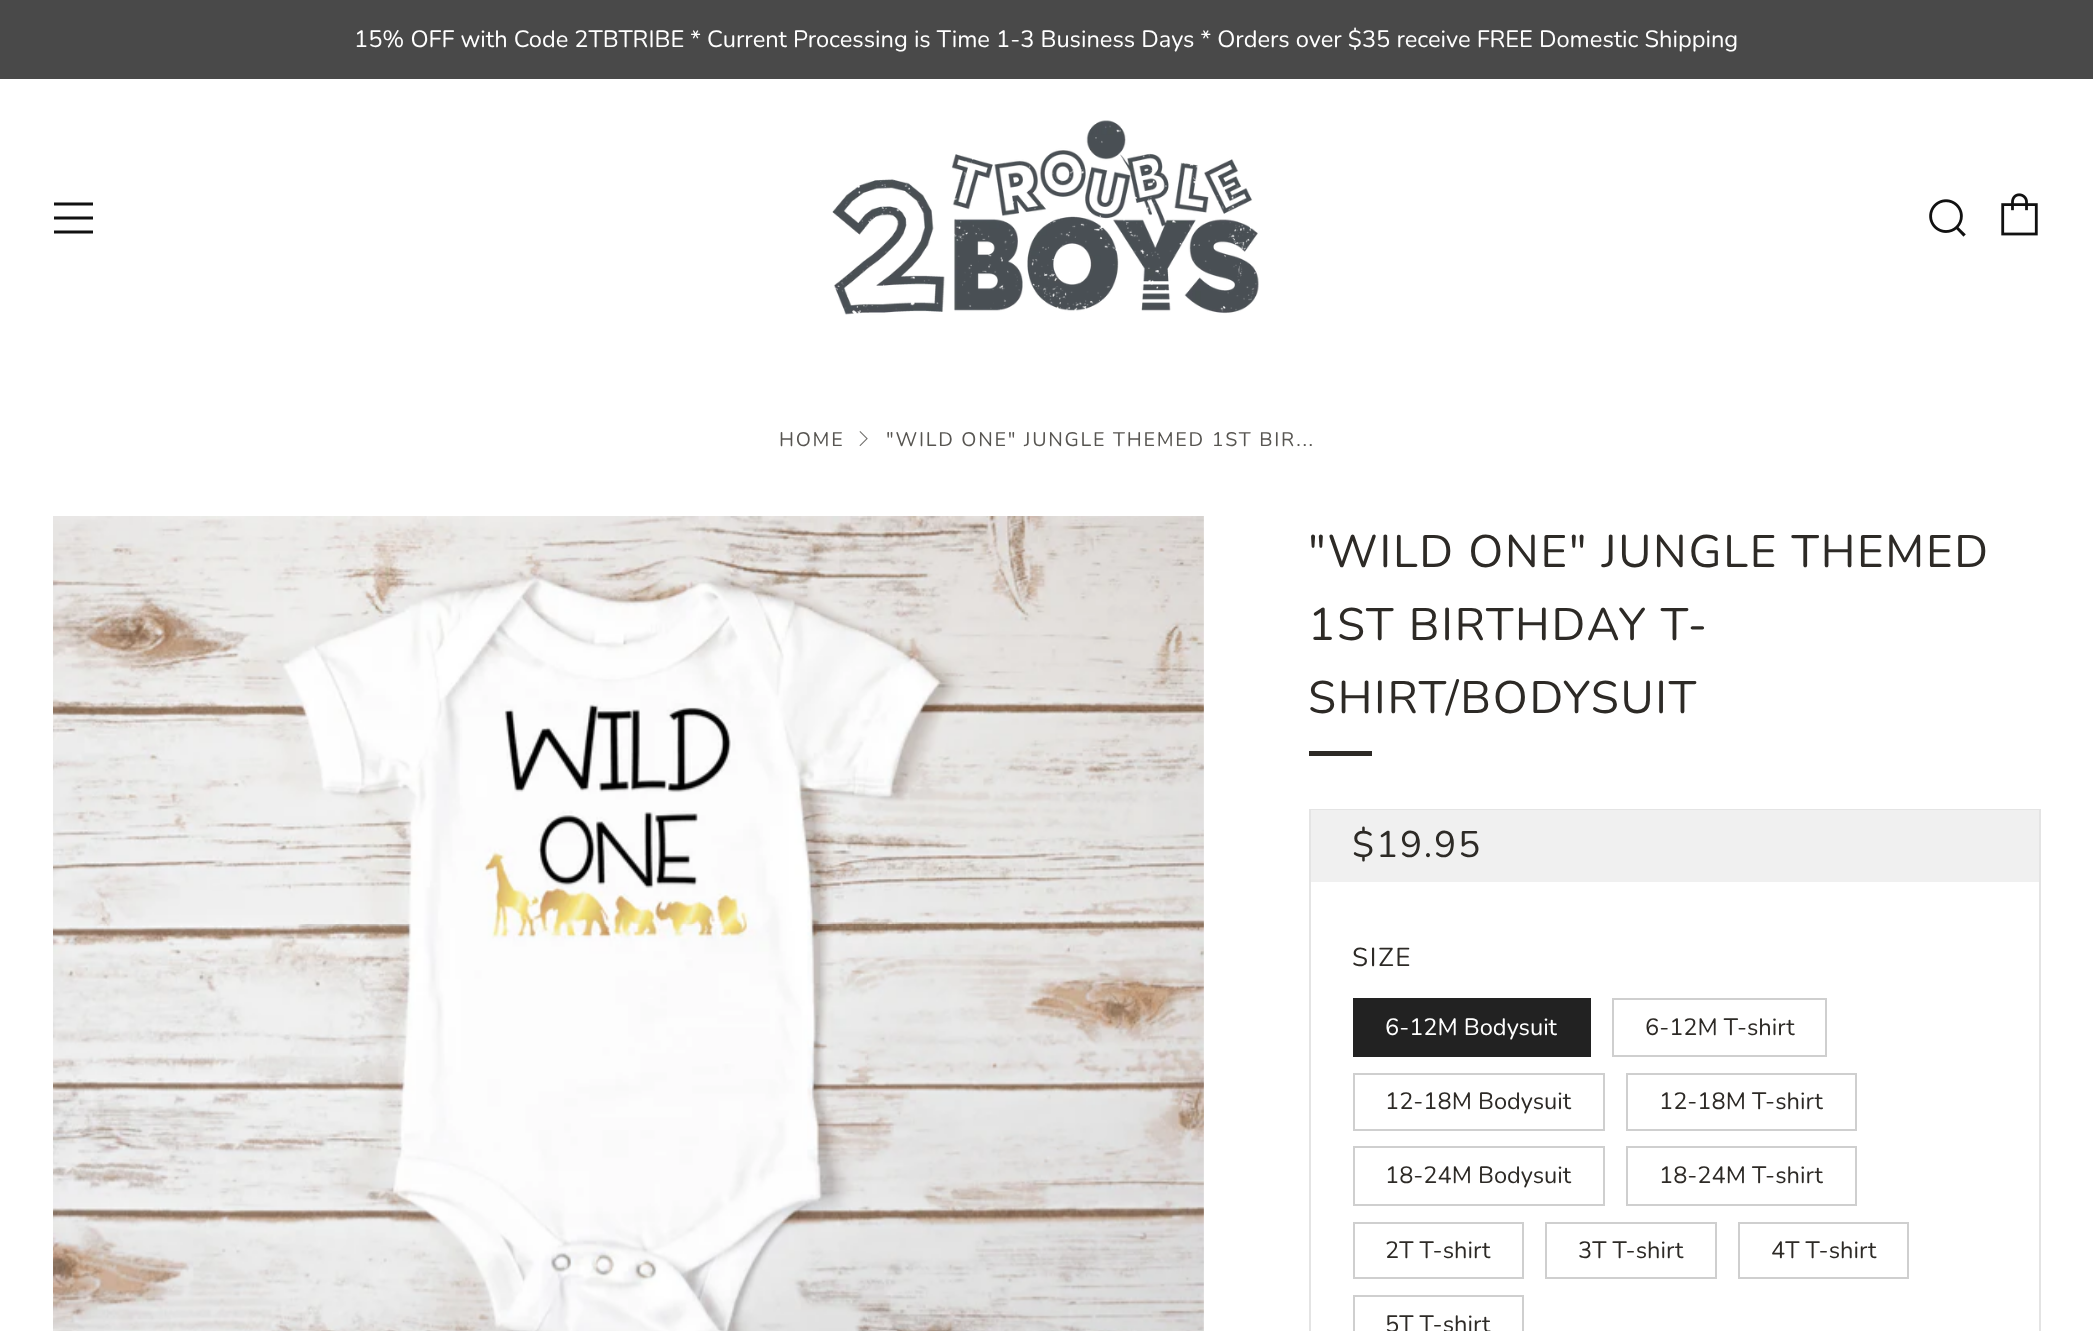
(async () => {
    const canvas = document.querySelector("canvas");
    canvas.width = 2093;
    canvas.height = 1331;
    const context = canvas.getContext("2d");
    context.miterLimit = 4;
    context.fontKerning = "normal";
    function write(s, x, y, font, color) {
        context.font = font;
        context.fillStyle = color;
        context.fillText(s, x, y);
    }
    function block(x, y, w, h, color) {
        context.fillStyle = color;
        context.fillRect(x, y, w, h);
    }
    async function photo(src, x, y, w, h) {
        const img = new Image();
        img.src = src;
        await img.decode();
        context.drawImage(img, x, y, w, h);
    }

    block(0, 0, 2093, 1331, "rgb(255, 255, 255)");
    block(0, 0, 2093, 79, "rgb(73, 73, 73)");
    write("15% OFF with Code 2TBTRIBE * Current Processing is Time 1-3 Business Days * Orders over $35 receive FREE Domestic Shipping", 354, 47, "23.62px Nunito", "rgb(255, 255, 255)");
    context.fillStyle = "rgb(17, 17, 17)";
    context.beginPath();
    context.moveTo(54, 205.5);
    context.lineTo(93, 205.5);
    context.lineTo(93, 202.5);
    context.lineTo(54, 202.5);
    context.closePath();
    context.moveTo(54, 233.5);
    context.lineTo(93, 233.5);
    context.lineTo(93, 230.5);
    context.lineTo(54, 230.5);
    context.closePath();
    context.moveTo(54, 219.5);
    context.lineTo(93, 219.5);
    context.lineTo(93, 216.5);
    context.lineTo(54, 216.5);
    context.closePath();
    context.fill();
    await photo("media/1.png", 832, 120, 427, 195);
    await photo("media/2.png", 1929, 199, 37, 38);
    await photo("media/3.png", 2001, 193, 37, 43);
    context.letterSpacing = "1.75px";
    write("HOME", 779, 446, "19.7px Nunito", "rgb(87, 85, 81)");
    await photo("media/4.png", 859, 431, 9, 15);
    write("\"WILD ONE\" JUNGLE THEMED 1ST BIR...", 886, 446, "19.7px Nunito", "rgb(87, 85, 81)");
    await photo("media/5.png", 53, 516, 1151, 815);
    write("\"WILD ONE\" JUNGLE THEMED", 1308, 567, "45.5px Nunito", "rgb(45, 42, 38)");
    write("1ST BIRTHDAY T-", 1308, 640, "45.5px Nunito", "rgb(45, 42, 38)");
    write("SHIRT/BODYSUIT", 1308, 713, "45.5px Nunito", "rgb(45, 42, 38)");
    block(1309, 751, 63, 5, "rgb(45, 42, 38)");
    context.strokeStyle = "rgb(228, 228, 228)";
    context.lineWidth = 2;
    context.strokeRect(1310, 810, 730, 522);
    block(1311, 810, 728, 72, "rgb(240, 240, 240)");
    write("$19.95", 1352, 857, "37px Nunito", "rgb(45, 42, 38)");
    write("SIZE", 1352, 966, "26px Nunito", "rgb(45, 42, 38)");
    block(1353, 998, 238, 59, "rgb(34, 34, 34)");
    context.letterSpacing = "0px";
    write("6-12M Bodysuit", 1385, 1035, "23.62px Nunito", "rgb(255, 255, 255)");
    context.strokeStyle = "rgb(207, 207, 207)";
    context.strokeRect(1613, 999, 213, 57);
    write("6-12M T-shirt", 1645, 1035, "23.62px Nunito", "rgb(45, 42, 38)");
    context.strokeRect(1354, 1074, 250, 56);
    write("12-18M Bodysuit", 1385, 1109, "23.62px Nunito", "rgb(45, 42, 38)");
    context.strokeRect(1627, 1074, 229, 56);
    write("12-18M T-shirt", 1659, 1109, "23.62px Nunito", "rgb(45, 42, 38)");
    context.strokeRect(1354, 1147, 250, 58);
    write("18-24M Bodysuit", 1385, 1183, "23.62px Nunito", "rgb(45, 42, 38)");
    context.strokeRect(1627, 1147, 229, 58);
    write("18-24M T-shirt", 1659, 1183, "23.62px Nunito", "rgb(45, 42, 38)");
    context.strokeRect(1354, 1223, 169, 55);
    write("2T T-shirt", 1385, 1258, "23.62px Nunito", "rgb(45, 42, 38)");
    context.strokeRect(1546, 1223, 170, 55);
    write("3T T-shirt", 1578, 1258, "23.62px Nunito", "rgb(45, 42, 38)");
    context.strokeRect(1739, 1223, 169, 55);
    write("4T T-shirt", 1771, 1258, "23.62px Nunito", "rgb(45, 42, 38)");
    context.strokeRect(1354, 1296, 169, 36);
    write("5T T-shirt", 1385, 1332, "23.62px Nunito", "rgb(45, 42, 38)");
})();
